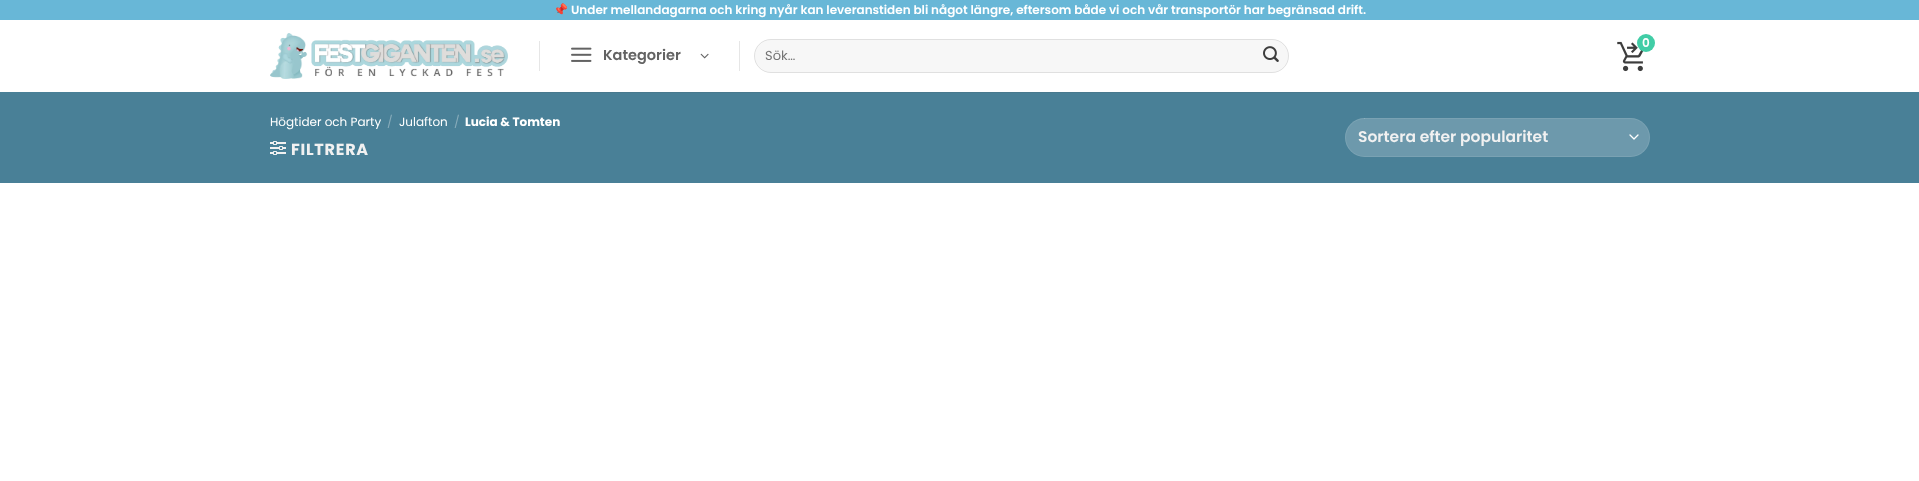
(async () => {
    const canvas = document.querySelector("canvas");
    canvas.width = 1919;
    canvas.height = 481;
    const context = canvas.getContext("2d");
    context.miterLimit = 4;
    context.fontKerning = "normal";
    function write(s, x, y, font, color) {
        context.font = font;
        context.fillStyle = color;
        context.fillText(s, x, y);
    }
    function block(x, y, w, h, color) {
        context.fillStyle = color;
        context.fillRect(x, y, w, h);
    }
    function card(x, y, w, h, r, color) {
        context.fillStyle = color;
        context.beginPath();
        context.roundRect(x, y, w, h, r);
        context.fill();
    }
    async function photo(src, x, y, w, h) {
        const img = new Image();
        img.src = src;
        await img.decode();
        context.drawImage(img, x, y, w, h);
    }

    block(0, 0, 1919, 481, "rgb(255, 255, 255)");
    block(0, 0, 1919, 20, "rgb(104, 183, 215)");
    write("📌", 553, 14, "bold 12px Noto Color Emoji", "rgb(255, 255, 255)");
    write("Under mellandagarna och kring nyår kan leveranstiden bli något längre, eftersom både vi och vår transportör har begränsad drift.", 571, 14, "600 12px Poppins", "rgb(255, 255, 255)");
    await photo("media/1.png", 270, 33, 238, 46);
    await photo("media/2.png", 1617, 41, 27, 31);
    context.fillStyle = "rgb(65, 205, 166)";
    context.beginPath();
    context.arc(1646, 43, 9, 0, Math.PI * 2);
    context.fill();
    write("0", 1642, 47, "600 12px Poppins", "rgb(255, 255, 255)");
    block(539, 41, 1, 30, "rgb(230, 230, 230)");
    await photo("media/3.png", 571, 47, 21, 15);
    write("Kategorier", 603, 60, "600 14.5px Poppins", "rgb(99, 99, 99)");
    await photo("media/4.png", 700, 53, 9, 6);
    block(739, 41, 1, 30, "rgb(230, 230, 230)");
    card(754, 39, 535, 34, 17, "rgb(247, 247, 247)");
    context.beginPath();
    context.roundRect(754.5, 39.5, 534, 33, 16.5);
    context.strokeStyle = "rgba(0, 0, 0, 0.09)";
    context.stroke();
    write("Sök…", 765, 60, "13px Poppins", "rgb(117, 117, 117)");
    await photo("media/5.png", 1263, 46, 16, 16);
    block(0, 92, 1919, 91, "rgb(73, 128, 151)");
    block(270, 92, 1380, 1, "rgb(72, 121, 142)");
    write("Högtider och Party", 270, 126, "12px Poppins", "rgb(255, 255, 255)");
    write("/", 387, 126, "12px Poppins", "rgb(137, 172, 187)");
    write("Julafton", 399, 126, "12px Poppins", "rgb(255, 255, 255)");
    write("/", 454, 126, "12px Poppins", "rgb(137, 172, 187)");
    write("Lucia & Tomten", 465, 126, "bold 12px Poppins", "rgb(255, 255, 255)");
    await photo("media/6.png", 270, 141, 16, 14);
    context.letterSpacing = "0.75px";
    write("FILTRERA", 291, 155, "bold 16px Poppins", "rgb(241, 241, 241)");
    card(1345, 118, 305, 39, 19.5, "rgb(109, 153, 172)");
    context.beginPath();
    context.moveTo(1630, 135);
    context.lineTo(1634, 139);
    context.lineTo(1638, 135);
    context.strokeStyle = "rgb(255, 255, 255)";
    context.lineWidth = 1.3;
    context.lineCap = "round";
    context.lineJoin = "round";
    context.stroke();
    context.beginPath();
    context.roundRect(1345.5, 118.5, 304, 38, 19);
    context.strokeStyle = "rgba(255, 255, 255, 0.09)";
    context.lineWidth = 1;
    context.lineJoin = "miter";
    context.stroke();
    context.letterSpacing = "0px";
    write("Sortera efter popularitet", 1358, 142, "600 15.5px Poppins", "rgb(241, 241, 241)");
})();
